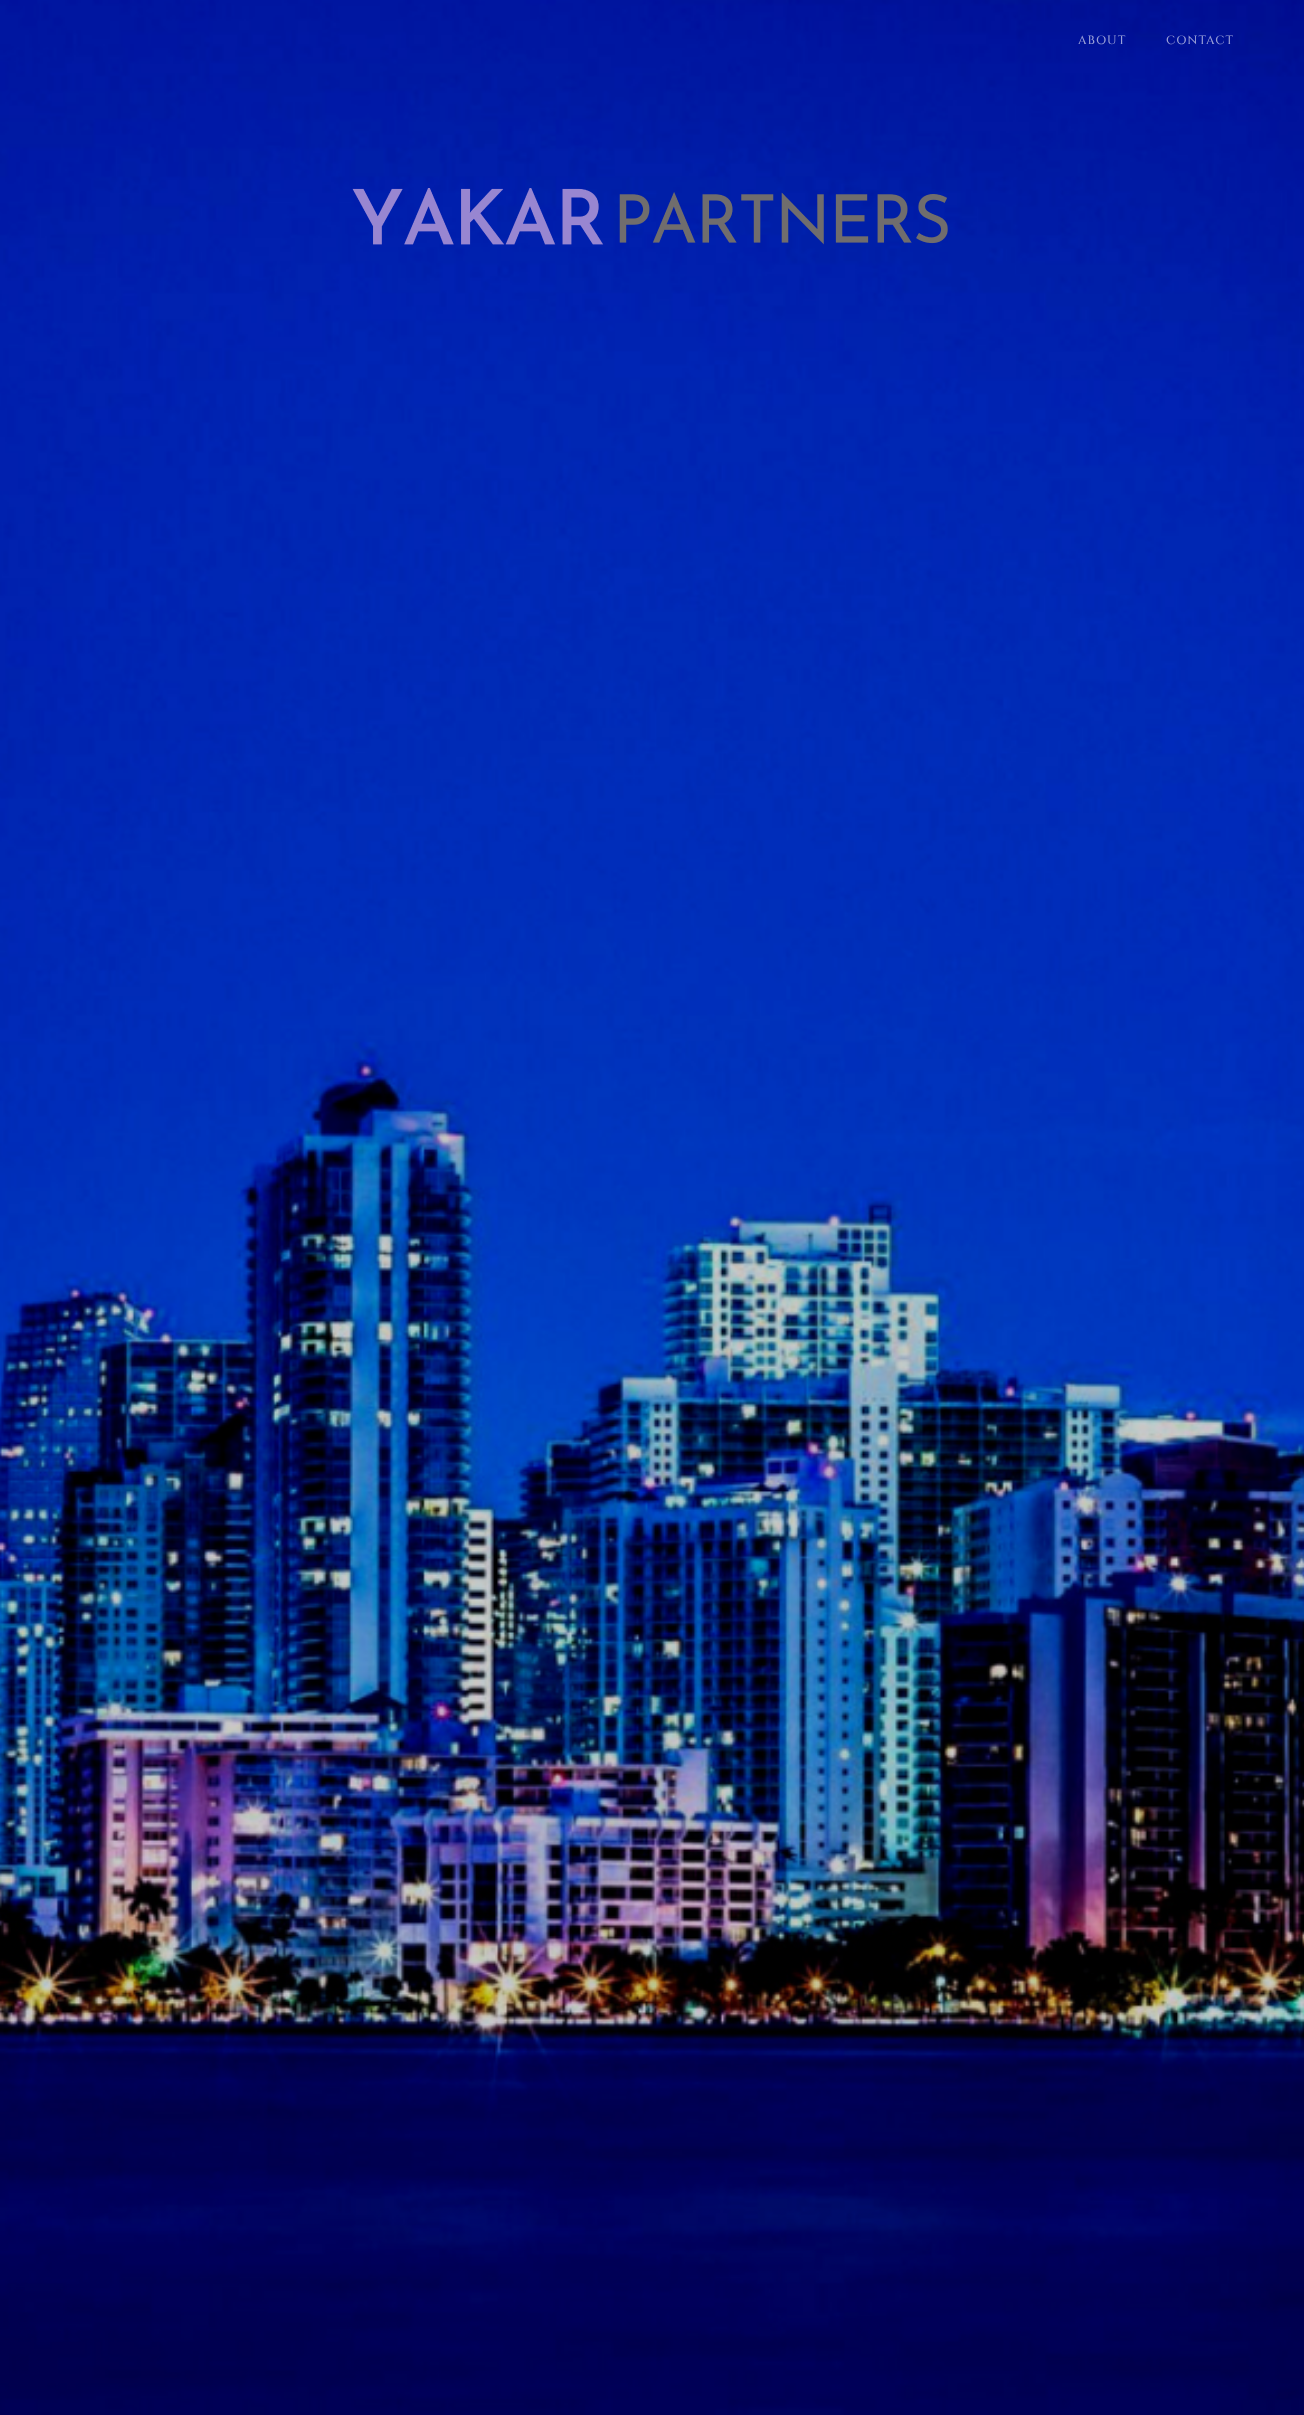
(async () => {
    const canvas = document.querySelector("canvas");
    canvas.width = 1304;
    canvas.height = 2415;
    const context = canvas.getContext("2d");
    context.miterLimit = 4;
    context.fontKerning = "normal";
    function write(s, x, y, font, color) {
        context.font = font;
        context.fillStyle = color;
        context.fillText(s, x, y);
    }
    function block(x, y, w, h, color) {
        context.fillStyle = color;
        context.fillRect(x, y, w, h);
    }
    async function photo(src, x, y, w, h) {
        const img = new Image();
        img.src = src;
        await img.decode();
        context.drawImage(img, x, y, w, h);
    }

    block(0, 0, 1304, 2415, "rgb(255, 255, 255)");
    await photo("media/1.png", 0, 0, 1304, 2415);
    await photo("media/2.png", 352, 188, 596, 57);
    context.letterSpacing = "1px";
    write("ABOUT", 1078, 44, "500 12px Cinzel", "rgb(153, 160, 215)");
    write("CONTACT", 1166, 44, "500 12px Cinzel", "rgb(153, 160, 215)");
})();
